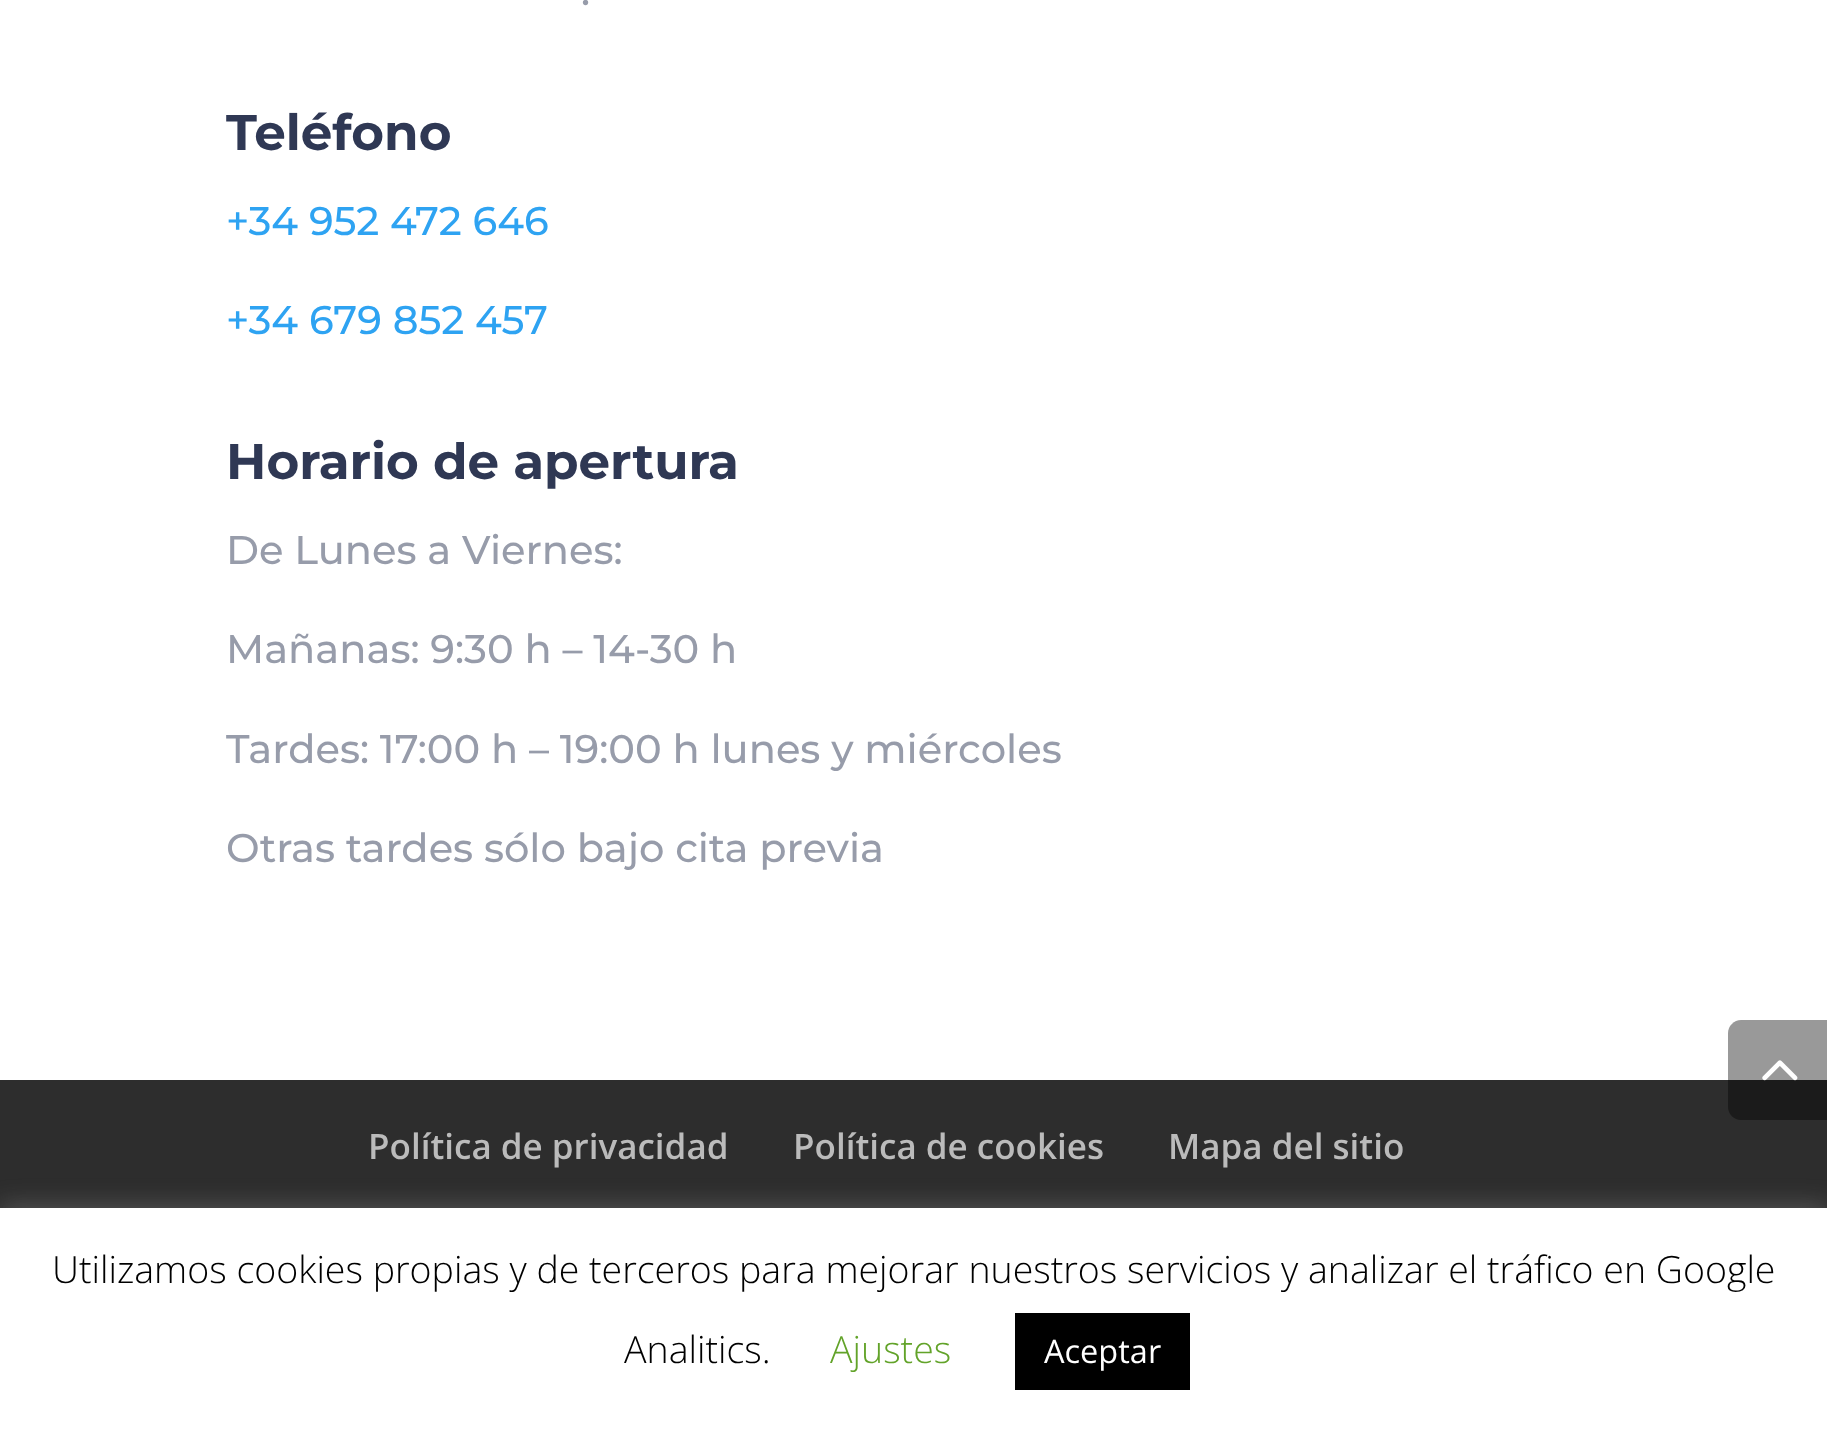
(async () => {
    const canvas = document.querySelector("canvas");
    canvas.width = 1827;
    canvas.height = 1432;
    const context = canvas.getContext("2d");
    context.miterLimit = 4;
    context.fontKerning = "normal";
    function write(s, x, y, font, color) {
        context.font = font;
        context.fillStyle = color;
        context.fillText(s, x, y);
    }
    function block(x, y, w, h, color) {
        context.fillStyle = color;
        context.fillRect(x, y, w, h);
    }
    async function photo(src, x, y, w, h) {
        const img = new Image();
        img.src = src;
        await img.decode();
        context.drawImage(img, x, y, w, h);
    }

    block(0, 0, 1827, 1432, "rgb(255, 255, 255)");
    write(".", 581, 5, "100 40px Montserrat", "rgb(151, 156, 170)");
    write("Teléfono", 226, 150, "100 50px 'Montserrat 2'", "rgb(47, 56, 84)");
    write("+34 952 472 646", 226, 235, "100 40px Montserrat", "rgb(46, 163, 242)");
    write("+34 679 852 457", 226, 334, "100 40px Montserrat", "rgb(46, 163, 242)");
    write("Horario de apertura", 226, 479, "100 50px 'Montserrat 2'", "rgb(47, 56, 84)");
    write("De Lunes a Viernes:", 226, 564, "100 40px Montserrat", "rgb(151, 156, 170)");
    write("Mañanas: 9:30 h – 14-30 h", 226, 663, "100 40px Montserrat", "rgb(151, 156, 170)");
    write("Tardes: 17:00 h – 19:00 h lunes y miércoles", 226, 763, "100 40px Montserrat", "rgb(151, 156, 170)");
    write("Otras tardes sólo bajo cita previa", 226, 862, "100 40px Montserrat", "rgb(151, 156, 170)");
    block(0, 1080, 1827, 128, "rgb(45, 45, 45)");
    context.fillStyle = "rgba(0, 0, 0, 0.4)";
    context.beginPath();
    context.moveTo(1741, 1020);
    context.lineTo(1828, 1020);
    context.lineTo(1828, 1120);
    context.lineTo(1741, 1120);
    context.bezierCurveTo(1734, 1120, 1728, 1114, 1728, 1107);
    context.lineTo(1728, 1033);
    context.bezierCurveTo(1728, 1026, 1734, 1020, 1741, 1020);
    context.closePath();
    context.fill();
    await photo("media/1.png", 1762, 1060, 36, 21);
    write("Política de privacidad", 368, 1159, "600 35px Open Sans", "rgb(187, 187, 187)");
    write("Política de cookies", 793, 1159, "600 35px Open Sans", "rgb(187, 187, 187)");
    write("Mapa del sitio", 1168, 1159, "600 35px Open Sans", "rgb(187, 187, 187)");
    context.fillStyle = "rgba(172, 171, 171, 0.3)";
    context.filter = "blur(12.5px)";
    context.beginPath();
    context.rect(0, 1205, 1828, 225);
    context.fill();
    context.filter = "none";
    block(0, 1208, 1827, 224, "rgb(255, 255, 255)");
    write("Utilizamos cookies propias y de terceros para mejorar nuestros servicios y analizar el tráfico en Google", 52, 1283, "300 37.5px Open Sans", "rgb(0, 0, 0)");
    write("Analitics.", 624, 1363, "300 37.5px Open Sans", "rgb(0, 0, 0)");
    write("Ajustes", 830, 1363, "300 37.5px Open Sans", "rgb(98, 163, 41)");
    block(1015, 1313, 175, 77, "rgb(0, 0, 0)");
    write("Aceptar", 1044, 1363, "32.5px Open Sans", "rgb(255, 255, 255)");
})();
